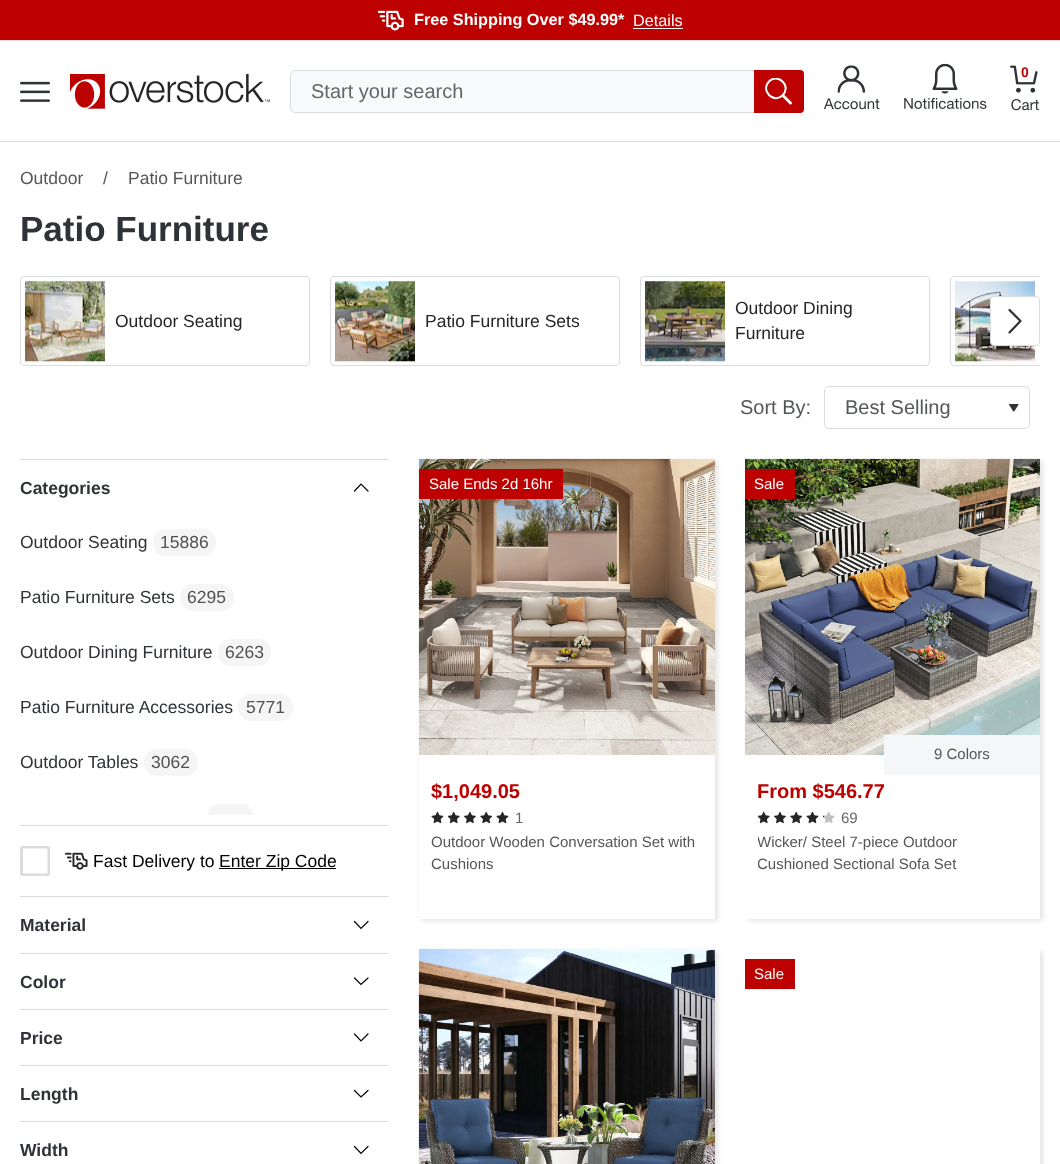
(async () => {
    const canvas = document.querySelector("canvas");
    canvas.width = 1060;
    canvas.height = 1164;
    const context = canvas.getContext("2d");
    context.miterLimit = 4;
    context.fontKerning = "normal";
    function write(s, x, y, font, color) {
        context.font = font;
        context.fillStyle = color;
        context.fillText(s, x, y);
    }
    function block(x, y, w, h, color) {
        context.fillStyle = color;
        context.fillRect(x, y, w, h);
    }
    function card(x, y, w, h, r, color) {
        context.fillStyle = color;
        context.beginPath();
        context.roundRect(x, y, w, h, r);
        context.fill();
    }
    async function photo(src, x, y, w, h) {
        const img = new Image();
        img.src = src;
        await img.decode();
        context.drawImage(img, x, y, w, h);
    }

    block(0, 0, 1060, 1164, "rgb(255, 255, 255)");
    block(0, 0, 1060, 40, "rgb(189, 0, 0)");
    await photo("media/1.png", 378, 10, 26, 21);
    write("Free Shipping Over $49.99*", 414, 25, "bold 16.25px Liberation Sans", "rgb(255, 255, 255)");
    write("Details", 633, 26, "16.25px Liberation Sans", "rgb(255, 255, 255)");
    block(633, 28, 50, 1, "rgb(255, 255, 255)");
    block(0, 40, 1060, 1, "rgb(218, 220, 223)");
    block(0, 141, 1060, 1, "rgb(218, 220, 223)");
    await photo("media/2.png", 824, 65, 56, 45);
    await photo("media/3.png", 904, 63, 83, 46);
    await photo("media/4.png", 1010, 65, 29, 46);
    write("0", 1021, 77, "bold 14px Liberation Sans", "rgb(189, 0, 0)");
    await photo("media/5.png", 20, 81, 30, 21);
    await photo("media/6.png", 70, 74, 200, 35);
    context.fillStyle = "rgb(249, 250, 251)";
    context.beginPath();
    context.roundRect(290.5, 70.5, 513, 42, 4.5);
    context.fill();
    context.strokeStyle = "rgb(218, 220, 223)";
    context.stroke();
    write("Start your search", 311, 98, "20px Liberation Sans", "rgb(98, 102, 105)");
    context.fillStyle = "rgb(189, 0, 0)";
    context.beginPath();
    context.roundRect(754, 70, 50, 43, [0, 4, 4, 0]);
    context.fill();
    context.beginPath();
    context.moveTo(790.5, 103);
    context.lineTo(783.5, 96);
    context.strokeStyle = "rgb(255, 255, 255)";
    context.lineWidth = 2.9;
    context.lineCap = "round";
    context.stroke();
    context.save();
    context.beginPath();
    context.rect(765, 78, 28, 27);
    context.clip();
    context.beginPath();
    context.moveTo(782.5, 81.5);
    context.bezierCurveTo(792, 90.5, 778, 104.5, 769, 95);
    context.bezierCurveTo(760, 86, 773.5, 72.5, 782.5, 81.5);
    context.closePath();
    context.lineWidth = 2;
    context.lineCap = "butt";
    context.stroke();
    context.restore();
    write("Outdoor", 20, 184, "17.5px Liberation Sans", "rgb(84, 86, 88)");
    write("/", 103, 184, "17.5px Liberation Sans", "rgb(84, 86, 88)");
    write("Patio Furniture", 128, 184, "17.5px Liberation Sans", "rgb(84, 86, 88)");
    write("Patio Furniture", 20, 241, "bold 35px Liberation Sans", "rgb(47, 51, 55)");
    context.beginPath();
    context.roundRect(20.5, 276.5, 289, 89, 3.5);
    context.strokeStyle = "rgb(218, 220, 223)";
    context.lineWidth = 1;
    context.stroke();
    await photo("media/7.png", 25, 281, 80, 81);
    write("Outdoor Seating", 115, 327, "17.5px Liberation Sans", "rgb(37, 37, 37)");
    context.beginPath();
    context.roundRect(330.5, 276.5, 289, 89, 3.5);
    context.stroke();
    await photo("media/8.png", 335, 281, 80, 81);
    write("Patio Furniture Sets", 425, 327, "17.5px Liberation Sans", "rgb(37, 37, 37)");
    context.beginPath();
    context.roundRect(640.5, 276.5, 289, 89, 3.5);
    context.stroke();
    await photo("media/9.png", 645, 281, 80, 81);
    write("Outdoor Dining", 735, 314, "17.5px Liberation Sans", "rgb(37, 37, 37)");
    write("Furniture", 735, 339, "17.5px Liberation Sans", "rgb(37, 37, 37)");
    context.save();
    context.beginPath();
    context.rect(20, 276, 1020, 90);
    context.clip();
    context.beginPath();
    context.roundRect(950.5, 276.5, 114, 89, 3.5);
    context.stroke();
    context.restore();
    await photo("media/10.png", 955, 281, 80, 81);
    context.fillStyle = "rgb(255, 255, 255)";
    context.beginPath();
    context.roundRect(990.5, 296.5, 49, 49, 3.5);
    context.fill();
    context.stroke();
    context.beginPath();
    context.moveTo(1009.5, 332.5);
    context.lineTo(1020.5, 321);
    context.lineTo(1009.5, 310);
    context.strokeStyle = "rgb(47, 51, 55)";
    context.lineWidth = 2.3;
    context.lineJoin = "round";
    context.stroke();
    write("Sort By:", 740, 414, "20px Liberation Sans", "rgb(84, 86, 88)");
    await photo("media/11.png", 1009, 404, 10, 8);
    context.beginPath();
    context.roundRect(824.5, 386.5, 205, 42, 4.5);
    context.strokeStyle = "rgb(218, 220, 223)";
    context.lineWidth = 1;
    context.lineJoin = "miter";
    context.stroke();
    write("Best Selling", 845, 414, "20px Liberation Sans", "rgb(84, 86, 88)");
    block(20, 459, 369, 1, "rgb(218, 220, 223)");
    write("Categories", 20, 494, "bold 17.5px Liberation Sans", "rgb(47, 51, 55)");
    context.beginPath();
    context.moveTo(354.5, 491);
    context.lineTo(361, 484);
    context.lineTo(368, 491);
    context.strokeStyle = "rgb(0, 0, 0)";
    context.lineWidth = 1.2;
    context.stroke();
    write("Outdoor Seating", 20, 548, "17.5px Liberation Sans", "rgb(47, 51, 55)");
    card(153, 529, 63, 27, 13, "rgb(245, 245, 245)");
    write("15886", 160, 548, "17.5px Liberation Sans", "rgb(81, 81, 81)");
    write("Patio Furniture Sets", 20, 603, "17.5px Liberation Sans", "rgb(47, 51, 55)");
    card(180, 584, 54, 27, 13, "rgb(245, 245, 245)");
    write("6295", 187, 603, "17.5px Liberation Sans", "rgb(81, 81, 81)");
    write("Outdoor Dining Furniture", 20, 658, "17.5px Liberation Sans", "rgb(47, 51, 55)");
    card(218, 639, 53, 27, 13, "rgb(245, 245, 245)");
    write("6263", 225, 658, "17.5px Liberation Sans", "rgb(81, 81, 81)");
    write("Patio Furniture Accessories", 20, 713, "17.5px Liberation Sans", "rgb(47, 51, 55)");
    card(238, 694, 55, 27, 13, "rgb(245, 245, 245)");
    write("5771", 246, 713, "17.5px Liberation Sans", "rgb(81, 81, 81)");
    write("Outdoor Tables", 20, 768, "17.5px Liberation Sans", "rgb(47, 51, 55)");
    card(144, 749, 54, 27, 13, "rgb(245, 245, 245)");
    write("3062", 151, 768, "17.5px Liberation Sans", "rgb(81, 81, 81)");
    context.fillStyle = "rgb(245, 245, 245)";
    context.beginPath();
    context.roundRect(208, 804, 45, 11, [13, 13, 0, 0]);
    context.fill();
    block(20, 825, 369, 1, "rgb(218, 220, 223)");
    context.beginPath();
    context.roundRect(21.5, 847.5, 27, 27, 1);
    context.strokeStyle = "rgb(218, 220, 223)";
    context.lineWidth = 3;
    context.stroke();
    await photo("media/12.png", 23, 848, 25, 26);
    await photo("media/13.png", 65, 852, 23, 18);
    write("Fast Delivery to", 93, 867, "17.5px Liberation Sans", "rgb(0, 0, 0)");
    block(219, 868, 117, 1, "rgb(0, 0, 0)");
    write("Enter Zip Code", 219, 867, "17.5px Liberation Sans", "rgb(0, 0, 0)");
    block(20, 896, 369, 1, "rgb(218, 220, 223)");
    write("Material", 20, 931, "bold 17.5px Liberation Sans", "rgb(47, 51, 55)");
    context.beginPath();
    context.moveTo(368, 921.5);
    context.lineTo(361, 928.5);
    context.lineTo(354.5, 921.5);
    context.strokeStyle = "rgb(0, 0, 0)";
    context.lineWidth = 1.2;
    context.stroke();
    block(20, 953, 369, 1, "rgb(218, 220, 223)");
    write("Color", 20, 988, "bold 17.5px Liberation Sans", "rgb(47, 51, 55)");
    context.beginPath();
    context.moveTo(368, 978);
    context.lineTo(361, 984.5);
    context.lineTo(354.5, 978);
    context.stroke();
    block(20, 1009, 369, 1, "rgb(218, 220, 223)");
    write("Price", 20, 1044, "bold 17.5px Liberation Sans", "rgb(47, 51, 55)");
    context.beginPath();
    context.moveTo(368, 1034);
    context.lineTo(361, 1041);
    context.lineTo(354.5, 1034);
    context.stroke();
    block(20, 1065, 369, 1, "rgb(218, 220, 223)");
    write("Length", 20, 1100, "bold 17.5px Liberation Sans", "rgb(47, 51, 55)");
    context.beginPath();
    context.moveTo(368, 1090.5);
    context.lineTo(361, 1097);
    context.lineTo(354.5, 1090.5);
    context.stroke();
    block(20, 1121, 369, 1, "rgb(218, 220, 223)");
    write("Width", 20, 1156, "bold 17.5px Liberation Sans", "rgb(47, 51, 55)");
    context.beginPath();
    context.moveTo(368, 1146.5);
    context.lineTo(361, 1153.5);
    context.lineTo(354.5, 1146.5);
    context.stroke();
    context.save();
    context.beginPath();
    context.moveTo(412, 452);
    context.lineTo(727, 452);
    context.lineTo(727, 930);
    context.lineTo(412, 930);
    context.closePath();
    context.moveTo(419, 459);
    context.lineTo(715, 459);
    context.lineTo(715, 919);
    context.lineTo(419, 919);
    context.closePath();
    context.clip("evenodd");
    context.fillStyle = "rgba(0, 0, 0, 0.1)";
    context.filter = "blur(2.5px)";
    context.beginPath();
    context.rect(421, 461, 297, 460);
    context.fill();
    context.filter = "none";
    context.restore();
    await photo("media/14.png", 418, 458, 297, 297);
    block(419, 469, 144, 30, "rgb(189, 0, 0)");
    write("Sale Ends 2d 16hr", 429, 489, "15px Liberation Sans", "rgb(255, 255, 255)");
    write("$1,049.05", 431, 798, "bold 20px Liberation Sans", "rgb(189, 0, 0)");
    await photo("media/15.png", 431, 811, 13, 13);
    await photo("media/16.png", 448, 811, 12, 13);
    await photo("media/17.png", 464, 811, 12, 13);
    await photo("media/18.png", 480, 811, 13, 13);
    await photo("media/15.png", 496, 811, 13, 13);
    write("1", 515, 823, "15px Liberation Sans", "rgb(98, 102, 105)");
    write("Outdoor Wooden Conversation Set with", 431, 847, "15px Liberation Sans", "rgb(84, 86, 88)");
    write("Cushions", 431, 869, "15px Liberation Sans", "rgb(84, 86, 88)");
    context.save();
    context.beginPath();
    context.moveTo(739, 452);
    context.lineTo(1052, 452);
    context.lineTo(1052, 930);
    context.lineTo(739, 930);
    context.closePath();
    context.moveTo(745, 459);
    context.lineTo(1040, 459);
    context.lineTo(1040, 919);
    context.lineTo(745, 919);
    context.closePath();
    context.clip("evenodd");
    context.fillStyle = "rgba(0, 0, 0, 0.1)";
    context.filter = "blur(2.5px)";
    context.beginPath();
    context.rect(748, 461, 295, 460);
    context.fill();
    context.filter = "none";
    context.restore();
    await photo("media/19.png", 745, 458, 295, 297);
    block(745, 469, 50, 30, "rgb(189, 0, 0)");
    write("Sale", 754, 489, "15px Liberation Sans", "rgb(255, 255, 255)");
    write("From $546.77", 757, 798, "bold 20px Liberation Sans", "rgb(189, 0, 0)");
    await photo("media/16.png", 758, 811, 12, 13);
    await photo("media/17.png", 774, 811, 12, 13);
    await photo("media/18.png", 790, 811, 13, 13);
    await photo("media/15.png", 806, 811, 13, 13);
    await photo("media/20.png", 823, 811, 12, 13);
    write("69", 841, 823, "15px Liberation Sans", "rgb(98, 102, 105)");
    context.save();
    context.beginPath();
    context.rect(758, 830, 270, 45);
    context.clip();
    write("Wicker/ Steel 7-piece Outdoor", 757, 847, "15px Liberation Sans", "rgb(84, 86, 88)");
    write("Cushioned Sectional Sofa Set", 757, 869, "15px Liberation Sans", "rgb(84, 86, 88)");
    context.restore();
    block(884, 735, 156, 40, "rgb(245, 246, 247)");
    write("9 Colors", 934, 759, "15px Liberation Sans", "rgb(84, 86, 88)");
    context.fillStyle = "rgba(0, 0, 0, 0.1)";
    context.filter = "blur(2.5px)";
    context.beginPath();
    context.rect(421, 951, 297, 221);
    context.fill();
    context.filter = "none";
    await photo("media/21.png", 418, 948, 297, 216);
    context.save();
    context.beginPath();
    context.rect(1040, 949, 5, 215);
    context.clip();
    context.filter = "blur(2.5px)";
    context.beginPath();
    context.rect(748, 951, 295, 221);
    context.fill();
    context.filter = "none";
    context.restore();
    block(745, 959, 50, 30, "rgb(189, 0, 0)");
    write("Sale", 754, 979, "15px Liberation Sans", "rgb(255, 255, 255)");
})();
